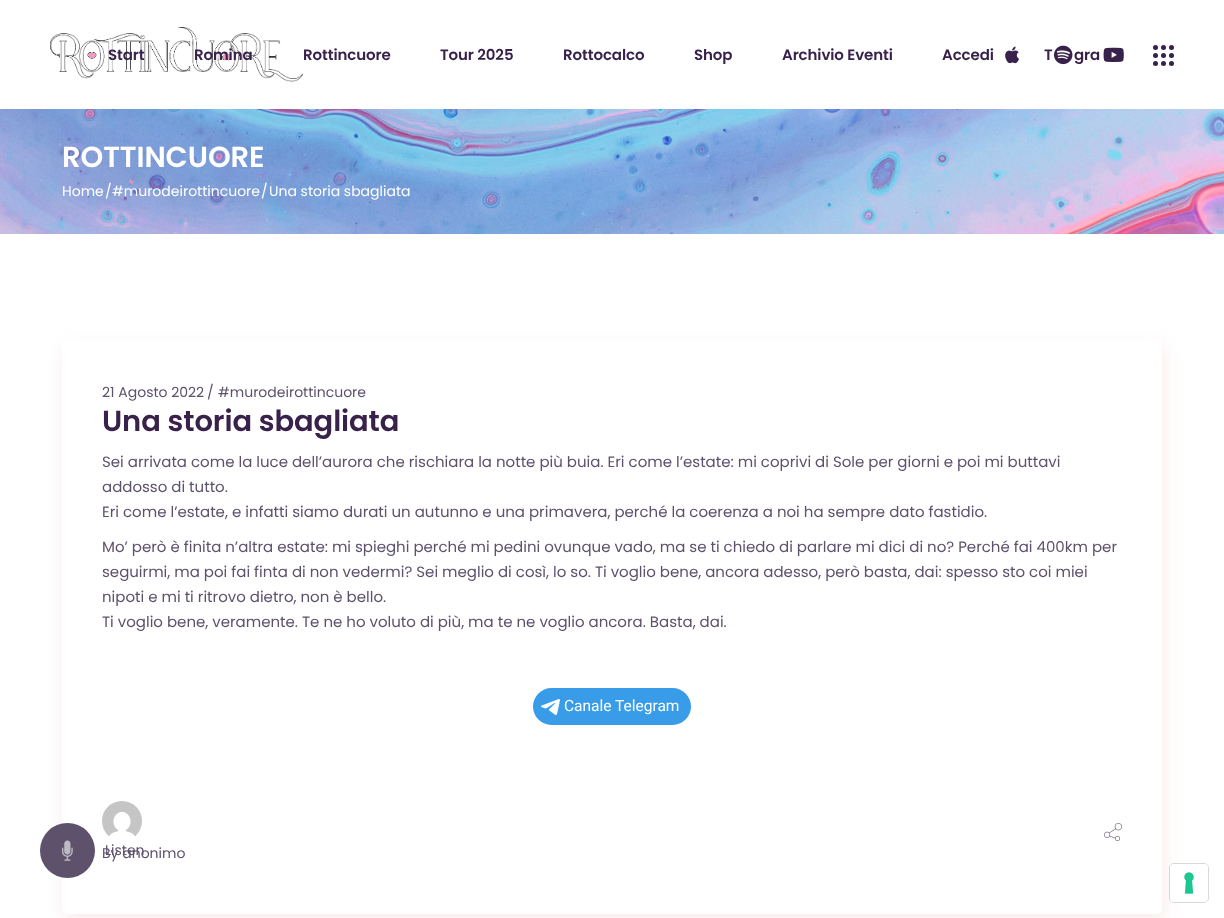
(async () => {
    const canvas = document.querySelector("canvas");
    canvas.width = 1224;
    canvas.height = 918;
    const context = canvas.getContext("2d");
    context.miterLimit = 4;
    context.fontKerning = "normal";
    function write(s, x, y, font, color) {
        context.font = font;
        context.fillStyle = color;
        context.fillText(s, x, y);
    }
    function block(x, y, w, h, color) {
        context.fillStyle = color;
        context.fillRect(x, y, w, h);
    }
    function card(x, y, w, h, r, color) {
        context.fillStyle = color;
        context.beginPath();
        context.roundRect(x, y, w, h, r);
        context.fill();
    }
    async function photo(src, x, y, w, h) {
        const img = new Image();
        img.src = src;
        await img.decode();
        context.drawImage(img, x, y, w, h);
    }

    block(0, 0, 1224, 918, "rgb(255, 255, 255)");
    await photo("media/1.png", 50, 27, 253, 55);
    await photo("media/2.png", 1005, 46, 14, 18);
    await photo("media/3.png", 1054, 45, 19, 20);
    await photo("media/4.png", 1103, 47, 21, 15);
    context.fillStyle = "rgb(56, 33, 74)";
    context.beginPath();
    context.arc(1155.5, 47.5, 2.5, 0, Math.PI * 2);
    context.fill();
    context.beginPath();
    context.arc(1163.5, 47.5, 2.5, 0, Math.PI * 2);
    context.fill();
    context.beginPath();
    context.arc(1171.5, 47.5, 2.5, 0, Math.PI * 2);
    context.fill();
    context.beginPath();
    context.arc(1155.5, 55.5, 2.5, 0, Math.PI * 2);
    context.fill();
    context.beginPath();
    context.arc(1163.5, 55.5, 2.5, 0, Math.PI * 2);
    context.fill();
    context.beginPath();
    context.arc(1171.5, 55.5, 2.5, 0, Math.PI * 2);
    context.fill();
    context.beginPath();
    context.arc(1155.5, 63.5, 2.5, 0, Math.PI * 2);
    context.fill();
    context.beginPath();
    context.arc(1163.5, 63.5, 2.5, 0, Math.PI * 2);
    context.fill();
    context.beginPath();
    context.arc(1171.5, 63.5, 2.5, 0, Math.PI * 2);
    context.fill();
    context.letterSpacing = "-0.1px";
    write("Start", 108, 60, "600 15px Poppins", "rgb(56, 33, 74)");
    write("Romina", 194, 60, "600 15px Poppins", "rgb(56, 33, 74)");
    write("Rottincuore", 303, 60, "600 15px Poppins", "rgb(56, 33, 74)");
    write("Tour 2025", 440, 60, "600 15px Poppins", "rgb(56, 33, 74)");
    write("Rottocalco", 563, 60, "600 15px Poppins", "rgb(56, 33, 74)");
    write("Shop", 694, 60, "600 15px Poppins", "rgb(56, 33, 74)");
    write("Archivio Eventi", 782, 60, "600 15px Poppins", "rgb(56, 33, 74)");
    write("Accedi", 942, 60, "600 15px Poppins", "rgb(56, 33, 74)");
    write("T", 1044, 60, "600 15px Poppins", "rgb(56, 33, 74)");
    write("gra", 1074, 60, "600 15px Poppins", "rgb(56, 33, 74)");
    await photo("media/5.png", 0, 109, 1224, 125);
    write("ROTTINCUORE", 62, 167, "600 29px Poppins", "rgb(255, 255, 255)");
    context.letterSpacing = "0px";
    write("Home", 62, 196, "14px Poppins", "rgb(255, 255, 255)");
    write("/", 105, 196, "14px Poppins", "rgb(255, 255, 255)");
    write("#murodeirottincuore", 112, 196, "14px Poppins", "rgb(255, 255, 255)");
    write("/", 261, 196, "14px Poppins", "rgb(255, 255, 255)");
    write("Una storia sbagliata", 269, 196, "14px Poppins", "rgb(255, 255, 255)");
    context.fillStyle = "rgba(228, 155, 148, 0.2)";
    context.filter = "blur(9px)";
    context.beginPath();
    context.roundRect(64, 346, 1100, 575, 5);
    context.fill();
    context.filter = "none";
    card(62, 339, 1100, 575, 5, "rgb(255, 255, 255)");
    write("21 Agosto 2022", 102, 397, "14px Poppins", "rgb(93, 81, 108)");
    write("/", 207, 397, "14px Poppins", "rgb(93, 81, 108)");
    write("#murodeirottincuore", 218, 397, "14px Poppins", "rgb(93, 81, 108)");
    context.letterSpacing = "-0.1px";
    write("Una storia sbagliata", 102, 431, "600 29px Poppins", "rgb(56, 33, 74)");
    context.letterSpacing = "0px";
    write("Sei arrivata come la luce dell’aurora che rischiara la notte più buia. Eri come l’estate: mi coprivi di Sole per giorni e poi mi buttavi", 102, 467, "15px Poppins", "rgb(93, 81, 108)");
    write("addosso di tutto.", 102, 492, "15px Poppins", "rgb(93, 81, 108)");
    write("Eri come l’estate, e infatti siamo durati un autunno e una primavera, perché la coerenza a noi ha sempre dato fastidio.", 102, 517, "15px Poppins", "rgb(93, 81, 108)");
    write("Mo’ però è finita n’altra estate: mi spieghi perché mi pedini ovunque vado, ma se ti chiedo di parlare mi dici di no? Perché fai 400km per", 102, 552, "15px Poppins", "rgb(93, 81, 108)");
    write("seguirmi, ma poi fai finta di non vedermi? Sei meglio di così, lo so. Ti voglio bene, ancora adesso, però basta, dai: spesso sto coi miei", 102, 577, "15px Poppins", "rgb(93, 81, 108)");
    write("nipoti e mi ti ritrovo dietro, non è bello.", 102, 602, "15px Poppins", "rgb(93, 81, 108)");
    write("Ti voglio bene, veramente. Te ne ho voluto di più, ma te ne voglio ancora. Basta, dai.", 102, 627, "15px Poppins", "rgb(93, 81, 108)");
    card(533, 688, 158, 37, 18.5, "rgb(56, 156, 233)");
    await photo("media/6.png", 541, 699, 19, 16);
    write("Canale Telegram", 564, 711, "15.5px Roboto", "rgb(255, 255, 255)");
    await photo("media/7.png", 1104, 823, 18, 18);
    await photo("media/8.png", 102, 801, 40, 35);
    write("By anonimo", 102, 858, "14px Poppins", "rgb(93, 81, 108)");
    context.beginPath();
    context.arc(67.5, 850.5, 27.5, 0, Math.PI * 2);
    context.fill();
    await photo("media/9.png", 62, 840, 11, 21);
    write("Listen", 105, 855, "14px Poppins", "rgb(93, 81, 108)");
    context.beginPath();
    context.roundRect(1169.5, 863.5, 39, 39, 4.5);
    context.strokeStyle = "rgba(0, 0, 0, 0.15)";
    context.stroke();
    card(1170, 864, 38, 38, 4, "rgb(255, 255, 255)");
    await photo("media/10.png", 1184, 872, 10, 22);
})();
